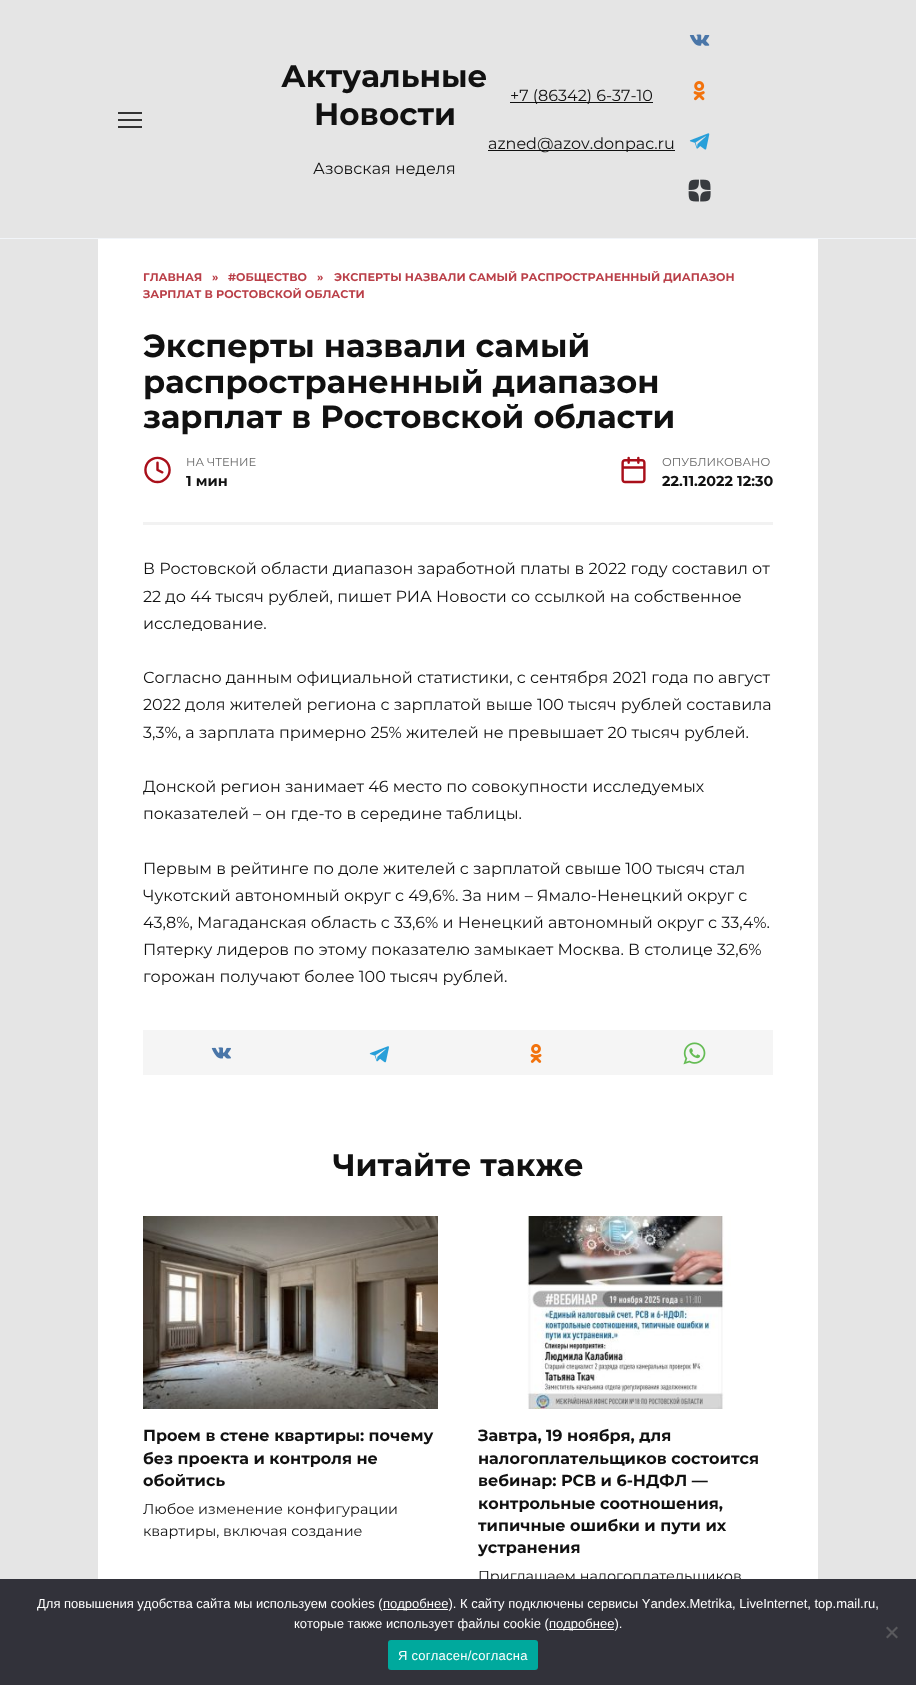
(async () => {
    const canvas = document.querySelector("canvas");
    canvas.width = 916;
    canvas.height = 1685;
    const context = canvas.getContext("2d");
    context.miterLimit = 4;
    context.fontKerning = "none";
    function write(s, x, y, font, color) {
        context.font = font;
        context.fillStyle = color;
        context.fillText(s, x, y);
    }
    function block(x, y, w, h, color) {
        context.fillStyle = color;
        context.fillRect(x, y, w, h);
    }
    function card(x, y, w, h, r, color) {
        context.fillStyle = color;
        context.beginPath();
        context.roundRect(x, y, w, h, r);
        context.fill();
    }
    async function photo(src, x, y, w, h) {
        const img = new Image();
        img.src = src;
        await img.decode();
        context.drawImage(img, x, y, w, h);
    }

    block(0, 0, 916, 1685, "rgb(229, 229, 229)");
    block(0, 238, 916, 1, "rgb(242, 245, 249)");
    block(118, 112, 24, 2, "rgb(51, 51, 51)");
    block(118, 119, 24, 2, "rgb(51, 51, 51)");
    block(118, 126, 24, 2, "rgb(51, 51, 51)");
    write("Актуальные", 281, 87, "bold 31px Montserrat", "rgb(17, 17, 17)");
    write("Новости", 314, 125, "bold 31px Montserrat", "rgb(17, 17, 17)");
    write("Азовская неделя", 313, 174, "16px Montserrat", "rgb(17, 17, 17)");
    block(510, 102, 143, 1, "rgb(17, 17, 17)");
    write("+7 (86342) 6-37-10", 510, 101, "16px Montserrat", "rgb(17, 17, 17)");
    block(488, 150, 187, 1, "rgb(17, 17, 17)");
    write("azned@azov.donpac.ru", 488, 149, "16px Montserrat", "rgb(17, 17, 17)");
    await photo("media/1.png", 689, 34, 21, 12);
    await photo("media/2.png", 693, 81, 12, 20);
    await photo("media/3.png", 689, 133, 21, 17);
    await photo("media/4.png", 688, 179, 23, 23);
    block(98, 239, 720, 1340, "rgb(255, 255, 255)");
    write("ГЛАВНАЯ", 143, 281, "bold 11.2px Montserrat", "rgb(186, 63, 72)");
    write("»", 212, 281, "bold 11.2px Montserrat", "rgb(186, 63, 72)");
    write("#ОБЩЕСТВО", 228, 281, "bold 11.2px Montserrat", "rgb(186, 63, 72)");
    write("»", 317, 281, "bold 11.2px Montserrat", "rgb(186, 63, 72)");
    write("ЭКСПЕРТЫ НАЗВАЛИ САМЫЙ РАСПРОСТРАНЕННЫЙ ДИАПАЗОН", 334, 281, "bold 11.2px Montserrat", "rgb(186, 63, 72)");
    write("ЗАРПЛАТ В РОСТОВСКОЙ ОБЛАСТИ", 143, 298, "bold 11.2px Montserrat", "rgb(186, 63, 72)");
    write("Эксперты назвали самый", 143, 357, "bold 32px Montserrat", "rgb(17, 17, 17)");
    write("распространенный диапазон", 143, 393, "bold 32px Montserrat", "rgb(17, 17, 17)");
    write("зарплат в Ростовской области", 143, 428, "bold 32px Montserrat", "rgb(17, 17, 17)");
    block(143, 522, 630, 3, "rgb(242, 242, 242)");
    write("🕒", 143, 482, "29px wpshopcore", "rgb(169, 15, 26)");
    write("НА ЧТЕНИЕ", 186, 466, "11.5px Montserrat", "rgb(102, 102, 102)");
    write("1 мин", 186, 486, "bold 14.4px Montserrat", "rgb(17, 17, 17)");
    write("📅", 619, 482, "29px wpshopcore", "rgb(169, 15, 26)");
    write("ОПУБЛИКОВАНО", 662, 466, "11.5px Montserrat", "rgb(102, 102, 102)");
    write("22.11.2022 12:30", 662, 486, "bold 14.4px Montserrat", "rgb(17, 17, 17)");
    write("В Ростовской области диапазон заработной платы в 2022 году составил от", 143, 574, "16px Montserrat", "rgb(17, 17, 17)");
    write("22 до 44 тысяч рублей, пишет РИА Новости со ссылкой на собственное", 143, 602, "16px Montserrat", "rgb(17, 17, 17)");
    write("исследование.", 143, 629, "16px Montserrat", "rgb(17, 17, 17)");
    write("Согласно данным официальной статистики, с сентября 2021 года по август", 143, 683, "16px Montserrat", "rgb(17, 17, 17)");
    write("2022 доля жителей региона с зарплатой выше 100 тысяч рублей составила", 143, 710, "16px Montserrat", "rgb(17, 17, 17)");
    write("3,3%, а зарплата примерно 25% жителей не превышает 20 тысяч рублей.", 143, 738, "16px Montserrat", "rgb(17, 17, 17)");
    write("Донской регион занимает 46 место по совокупности исследуемых", 143, 792, "16px Montserrat", "rgb(17, 17, 17)");
    write("показателей – он где-то в середине таблицы.", 143, 819, "16px Montserrat", "rgb(17, 17, 17)");
    write("Первым в рейтинге по доле жителей с зарплатой свыше 100 тысяч стал", 143, 874, "16px Montserrat", "rgb(17, 17, 17)");
    write("Чукотский автономный округ с 49,6%. За ним – Ямало-Ненецкий округ с", 143, 901, "16px Montserrat", "rgb(17, 17, 17)");
    write("43,8%, Магаданская область с 33,6% и Ненецкий автономный округ с 33,4%.", 143, 928, "16px Montserrat", "rgb(17, 17, 17)");
    write("Пятерку лидеров по этому показателю замыкает Москва. В столице 32,6%", 143, 955, "16px Montserrat", "rgb(17, 17, 17)");
    write("горожан получают более 100 тысяч рублей.", 143, 982, "16px Montserrat", "rgb(17, 17, 17)");
    block(143, 1030, 630, 45, "rgb(245, 245, 245)");
    await photo("media/5.png", 211, 1047, 20, 12);
    await photo("media/6.png", 369, 1046, 20, 17);
    await photo("media/7.png", 530, 1044, 12, 19);
    await photo("media/8.png", 683, 1042, 23, 23);
    write("Читайте также", 333, 1176, "bold 31px Montserrat", "rgb(17, 17, 17)");
    await photo("media/9.png", 143, 1216, 295, 193);
    write("Проем в стене квартиры: почему", 143, 1441, "bold 16px Montserrat", "rgb(17, 17, 17)");
    write("без проекта и контроля не", 143, 1464, "bold 16px Montserrat", "rgb(17, 17, 17)");
    write("обойтись", 143, 1486, "bold 16px Montserrat", "rgb(17, 17, 17)");
    write("Любое изменение конфигурации", 143, 1514, "14.4px Montserrat", "rgb(17, 17, 17)");
    write("квартиры, включая создание", 143, 1536, "14.4px Montserrat", "rgb(17, 17, 17)");
    await photo("media/10.png", 527, 1216, 204, 193);
    write("Завтра, 19 ноября, для", 478, 1441, "bold 16px Montserrat", "rgb(17, 17, 17)");
    write("налогоплательщиков состоится", 478, 1464, "bold 16px Montserrat", "rgb(17, 17, 17)");
    write("вебинар: РСВ и 6-НДФЛ —", 478, 1486, "bold 16px Montserrat", "rgb(17, 17, 17)");
    write("контрольные соотношения,", 478, 1509, "bold 16px Montserrat", "rgb(17, 17, 17)");
    write("типичные ошибки и пути их", 478, 1531, "bold 16px Montserrat", "rgb(17, 17, 17)");
    write("устранения", 478, 1553, "bold 16px Montserrat", "rgb(17, 17, 17)");
    write("Приглашаем налогоплательщиков", 478, 1581, "14.4px Montserrat", "rgb(17, 17, 17)");
    block(0, 1579, 916, 106, "rgb(50, 50, 58)");
    write("Для повышения удобства сайта мы используем cookies (", 37, 1608, "13px Liberation Sans", "rgb(255, 255, 255)");
    block(383, 1609, 65, 1, "rgb(255, 255, 255)");
    write("подробнее). К сайту подключены сервисы Yandex.Metrika, LiveInternet, top.mail.ru,", 383, 1608, "13px Liberation Sans", "rgb(255, 255, 255)");
    write("которые также использует файлы cookie (", 294, 1628, "13px Liberation Sans", "rgb(255, 255, 255)");
    block(549, 1629, 65, 1, "rgb(255, 255, 255)");
    write("подробнее).", 549, 1628, "13px Liberation Sans", "rgb(255, 255, 255)");
    context.fillStyle = "rgb(89, 89, 93)";
    context.beginPath();
    context.moveTo(896.5, 1626.5);
    context.lineTo(898, 1628);
    context.lineTo(887.5, 1638.5);
    context.lineTo(886, 1637);
    context.closePath();
    context.fill();
    context.beginPath();
    context.moveTo(886, 1628);
    context.lineTo(887.5, 1626.5);
    context.lineTo(898, 1637);
    context.lineTo(896.5, 1638.5);
    context.closePath();
    context.fill();
    card(388, 1640, 150, 30, 3, "rgb(0, 169, 157)");
    context.letterSpacing = "0.25px";
    write("Я согласен/согласна", 398, 1660, "13px Liberation Sans", "rgb(255, 255, 255)");
})();
